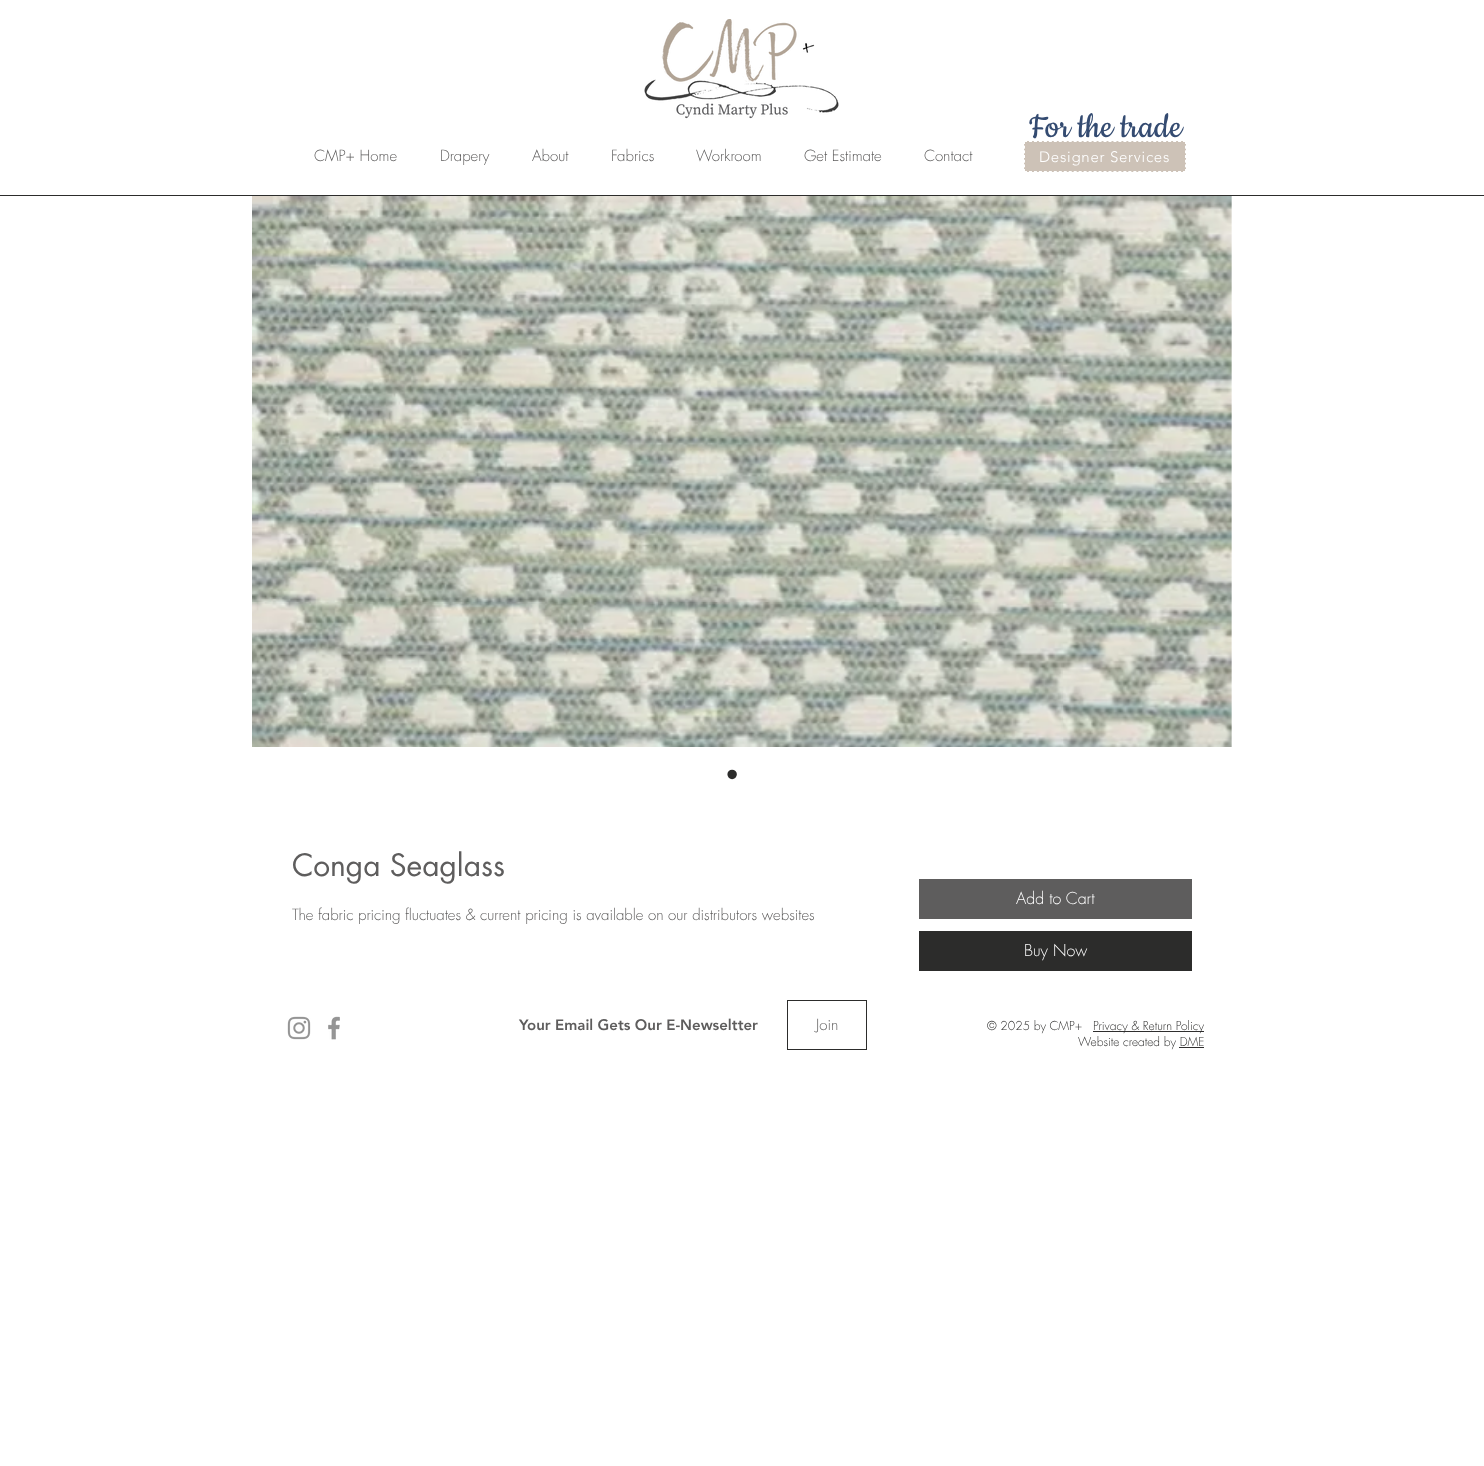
(async () => {
    const canvas = document.querySelector("canvas");
    canvas.width = 1484;
    canvas.height = 1466;
    const context = canvas.getContext("2d");
    context.miterLimit = 4;
    context.fontKerning = "normal";
    function write(s, x, y, font, color) {
        context.font = font;
        context.fillStyle = color;
        context.fillText(s, x, y);
    }
    function block(x, y, w, h, color) {
        context.fillStyle = color;
        context.fillRect(x, y, w, h);
    }
    async function photo(src, x, y, w, h) {
        const img = new Image();
        img.src = src;
        await img.decode();
        context.drawImage(img, x, y, w, h);
    }

    block(0, 0, 1484, 1466, "rgb(255, 255, 255)");
    await photo("media/1.png", 644, 19, 195, 100);
    write("For the trade", 1029, 137, "40px Cookie", "rgb(52, 75, 113)");
    write("CMP+ Home", 314, 161, "300 15px futura", "rgb(94, 93, 93)");
    write("Drapery", 440, 161, "300 15px futura", "rgb(94, 93, 93)");
    write("About", 532, 161, "300 15px futura", "rgb(94, 93, 93)");
    write("Fabrics", 611, 161, "300 15px futura", "rgb(94, 93, 93)");
    write("Workroom", 696, 161, "300 15px futura", "rgb(94, 93, 93)");
    write("Get Estimate", 804, 161, "300 15px futura", "rgb(94, 93, 93)");
    write("Contact", 924, 161, "300 15px futura", "rgb(94, 93, 93)");
    block(1024, 141, 162, 31, "rgb(205, 194, 183)");
    context.beginPath();
    context.moveTo(1024, 141.5);
    context.lineTo(1186, 141.5);
    context.strokeStyle = "rgb(255, 255, 255)";
    context.setLineDash([3, 1.97]);
    context.stroke();
    context.beginPath();
    context.moveTo(1185.5, 141);
    context.lineTo(1185.5, 172);
    context.setLineDash([3, 1.67]);
    context.stroke();
    context.beginPath();
    context.moveTo(1024, 171.5);
    context.lineTo(1186, 171.5);
    context.setLineDash([3, 1.97]);
    context.stroke();
    context.beginPath();
    context.moveTo(1024.5, 141);
    context.lineTo(1024.5, 172);
    context.setLineDash([3, 1.67]);
    context.stroke();
    context.letterSpacing = "0.75px";
    write("Designer Services", 1039, 162, "300 15px 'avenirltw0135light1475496'", "rgb(255, 255, 255)");
    block(0, 195, 1484, 1, "rgb(44, 44, 43)");
    await photo("media/2.png", 252, 196, 980, 551);
    context.letterSpacing = "0px";
    write("•", 726, 786, "35px Liberation Sans", "rgb(44, 44, 43)");
    write("Conga Seaglass", 292, 876, "30px futura", "rgb(94, 93, 93)");
    write("The fabric pricing fluctuates & current pricing is available on our distributors websites", 292, 920, "300 15px futura", "rgb(94, 93, 93)");
    block(919, 879, 273, 40, "rgb(94, 93, 93)");
    write("Add to Cart", 1016, 904, "300 16px futura", "rgb(255, 255, 255)");
    block(919, 931, 273, 40, "rgb(44, 44, 43)");
    write("Buy Now", 1024, 956, "300 16px futura", "rgb(255, 255, 255)");
    await photo("media/3.png", 287, 1016, 24, 24);
    await photo("media/4.png", 328, 1016, 12, 24);
    write("Your Email Gets Our E-Newseltter", 519, 1030, "900 15px 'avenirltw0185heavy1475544'", "rgb(94, 93, 93)");
    context.strokeStyle = "rgb(44, 44, 43)";
    context.setLineDash([]);
    context.strokeRect(787.5, 1000.5, 79, 49);
    write("Join", 816, 1030, "300 15px futura", "rgb(94, 93, 93)");
    write("© 2025 by CMP+", 987, 1030, "300 12px futura", "rgb(44, 44, 43)");
    block(1093, 1031, 111, 1, "rgb(47, 46, 46)");
    write("Privacy & Return Policy", 1093, 1030, "300 12px futura", "rgb(44, 44, 43)");
    write("Website created by DME", 1078, 1046, "300 12px futura", "rgb(44, 44, 43)");
    block(1179, 1047, 25, 1, "rgb(47, 46, 46)");
})();
